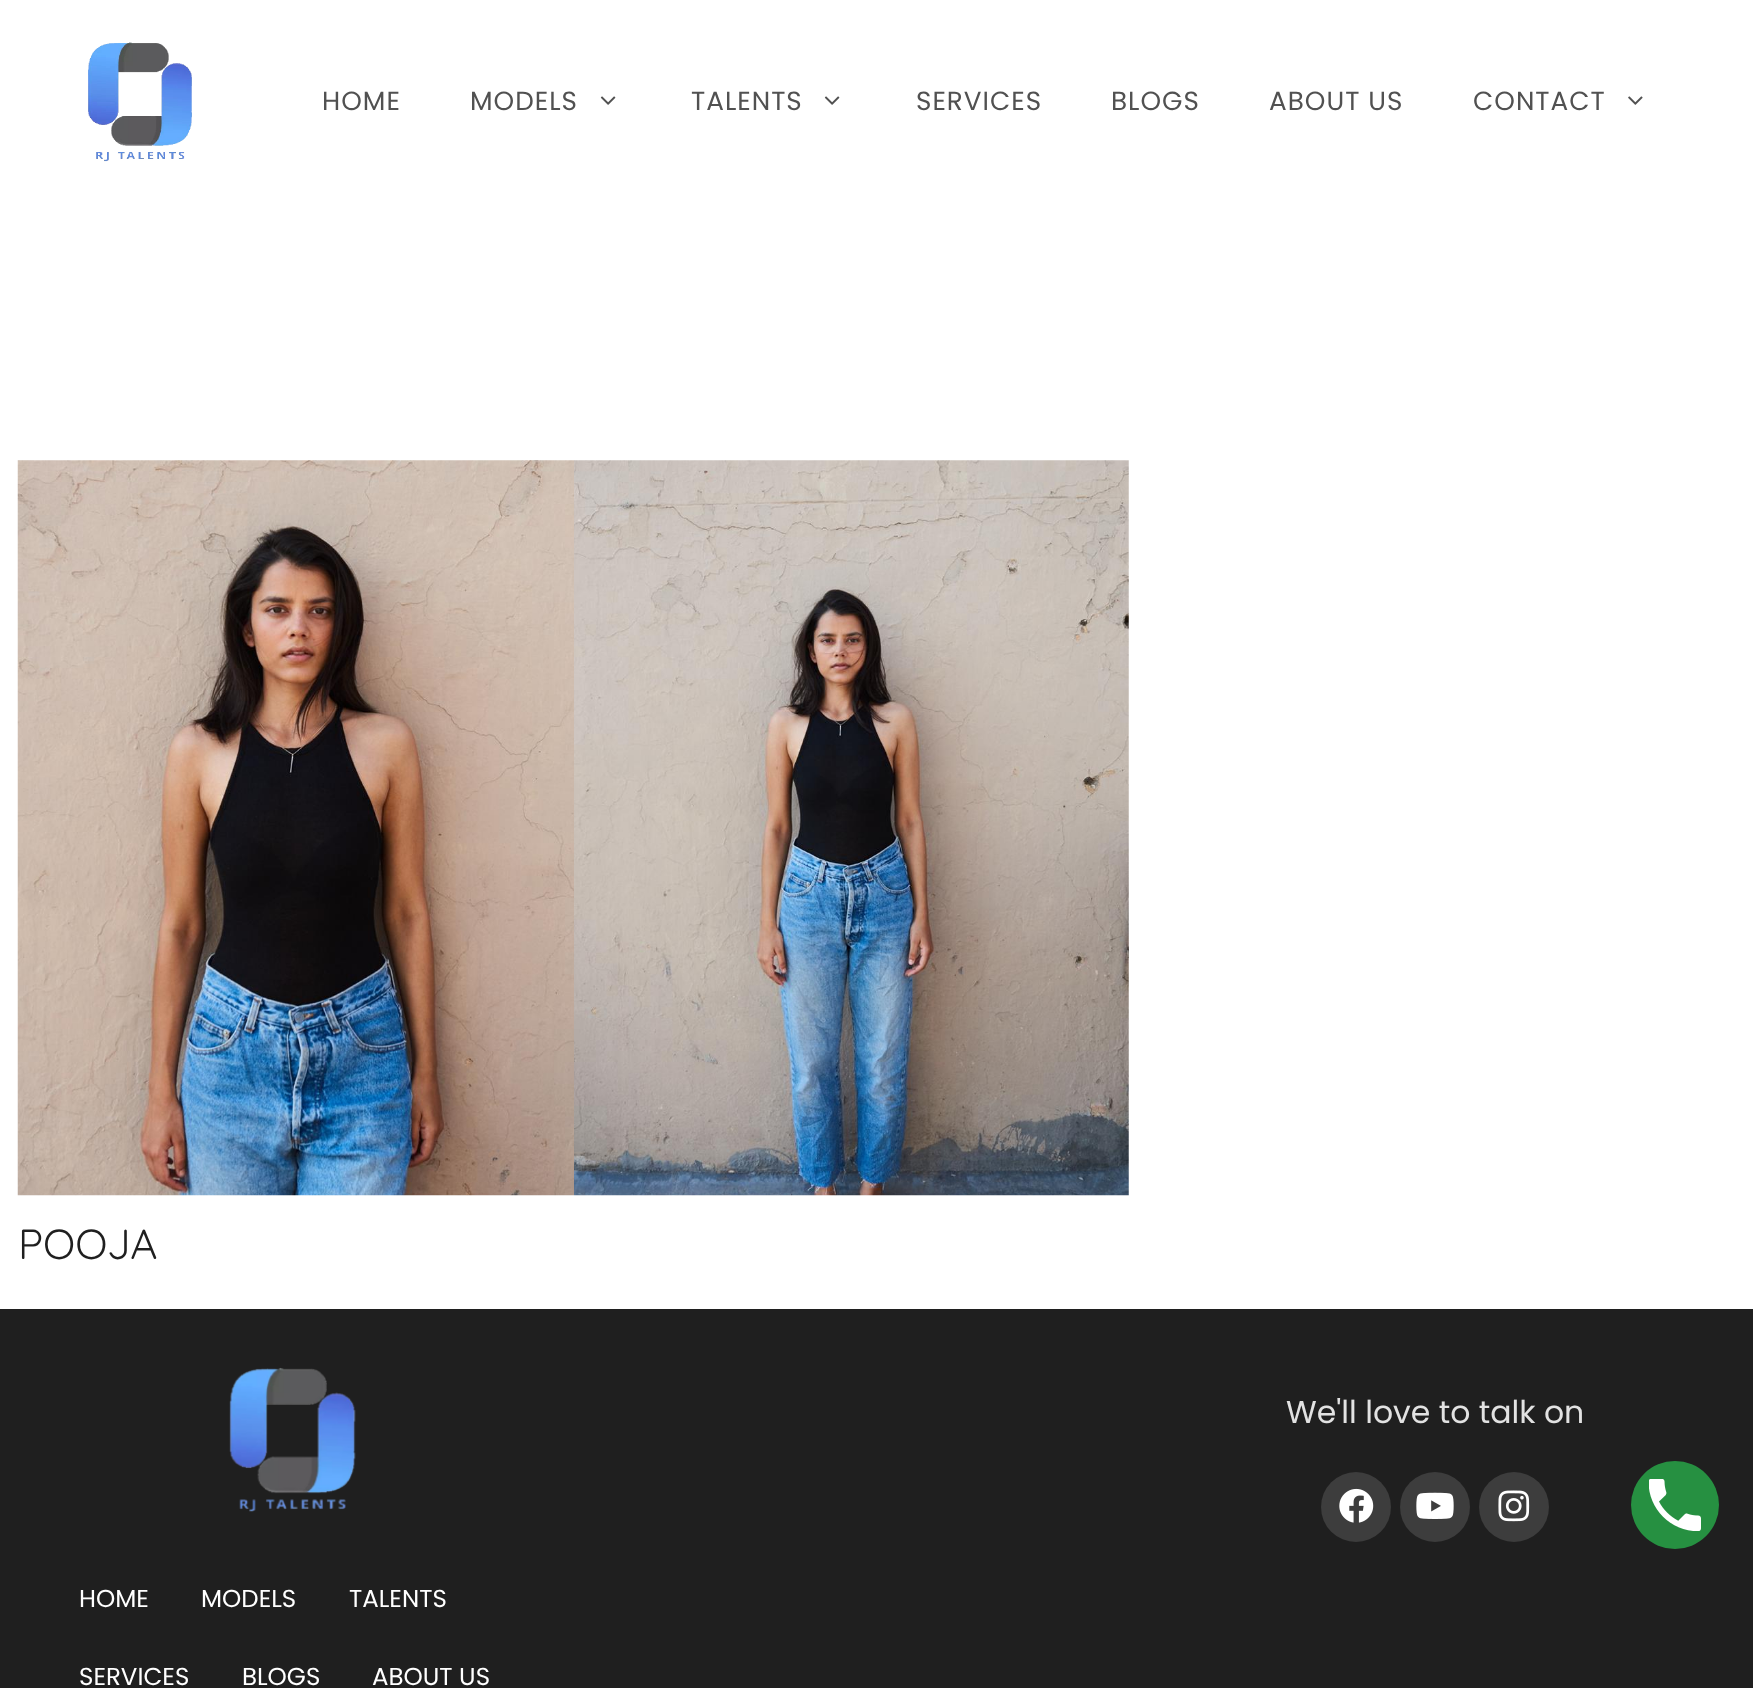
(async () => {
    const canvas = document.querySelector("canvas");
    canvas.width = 1753;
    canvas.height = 1688;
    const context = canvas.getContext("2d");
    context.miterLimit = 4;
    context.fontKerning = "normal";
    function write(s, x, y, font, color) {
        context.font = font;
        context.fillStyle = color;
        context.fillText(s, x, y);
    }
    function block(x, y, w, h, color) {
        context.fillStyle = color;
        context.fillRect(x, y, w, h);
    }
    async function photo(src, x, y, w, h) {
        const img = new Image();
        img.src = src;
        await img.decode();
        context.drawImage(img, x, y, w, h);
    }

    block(0, 0, 1753, 1688, "rgb(255, 255, 255)");
    await photo("media/1.png", 88, 42, 104, 120);
    context.letterSpacing = "1px";
    write("HOME", 322, 110, "26.25px Poppins", "rgb(81, 81, 81)");
    write("MODELS", 470, 110, "26.25px Poppins", "rgb(81, 81, 81)");
    await photo("media/2.png", 600, 96, 16, 9);
    write("TALENTS", 691, 110, "26.25px Poppins", "rgb(81, 81, 81)");
    await photo("media/2.png", 824, 96, 16, 9);
    write("SERVICES", 916, 110, "26.25px Poppins", "rgb(81, 81, 81)");
    write("BLOGS", 1111, 110, "26.25px Poppins", "rgb(81, 81, 81)");
    write("ABOUT US", 1269, 110, "26.25px Poppins", "rgb(81, 81, 81)");
    write("CONTACT", 1473, 110, "26.25px Poppins", "rgb(81, 81, 81)");
    await photo("media/3.png", 1628, 96, 15, 9);
    await photo("media/4.png", 17, 460, 557, 736);
    await photo("media/5.png", 574, 460, 555, 736);
    context.letterSpacing = "0px";
    write("POOJA", 18, 1259, "42px Quicksand", "rgb(31, 31, 31)");
    block(0, 1309, 1753, 379, "rgb(31, 31, 31)");
    write("We'll love to talk on", 1286, 1423, "31.5px Poppins", "rgb(226, 226, 226)");
    context.fillStyle = "rgb(61, 61, 61)";
    context.beginPath();
    context.arc(1356, 1507, 35, 0, Math.PI * 2);
    context.fill();
    await photo("media/6.png", 1339, 1488, 35, 35);
    context.beginPath();
    context.arc(1435, 1507, 35, 0, Math.PI * 2);
    context.fill();
    await photo("media/7.png", 1416, 1492, 38, 27);
    context.beginPath();
    context.arc(1514, 1507, 35, 0, Math.PI * 2);
    context.fill();
    await photo("media/8.png", 1498, 1490, 32, 32);
    await photo("media/9.png", 229, 1367, 127, 145);
    write("HOME", 79, 1607, "24.5px Poppins", "rgb(255, 255, 255)");
    write("MODELS", 201, 1607, "24.5px Poppins", "rgb(255, 255, 255)");
    write("TALENTS", 349, 1607, "24.5px Poppins", "rgb(255, 255, 255)");
    write("SERVICES", 79, 1685, "24.5px Poppins", "rgb(255, 255, 255)");
    write("BLOGS", 242, 1685, "24.5px Poppins", "rgb(255, 255, 255)");
    write("ABOUT US", 372, 1685, "24.5px Poppins", "rgb(255, 255, 255)");
    context.fillStyle = "rgb(38, 144, 65)";
    context.beginPath();
    context.arc(1675, 1505, 44, 0, Math.PI * 2);
    context.fill();
    await photo("media/10.png", 1649, 1479, 52, 52);
})();
